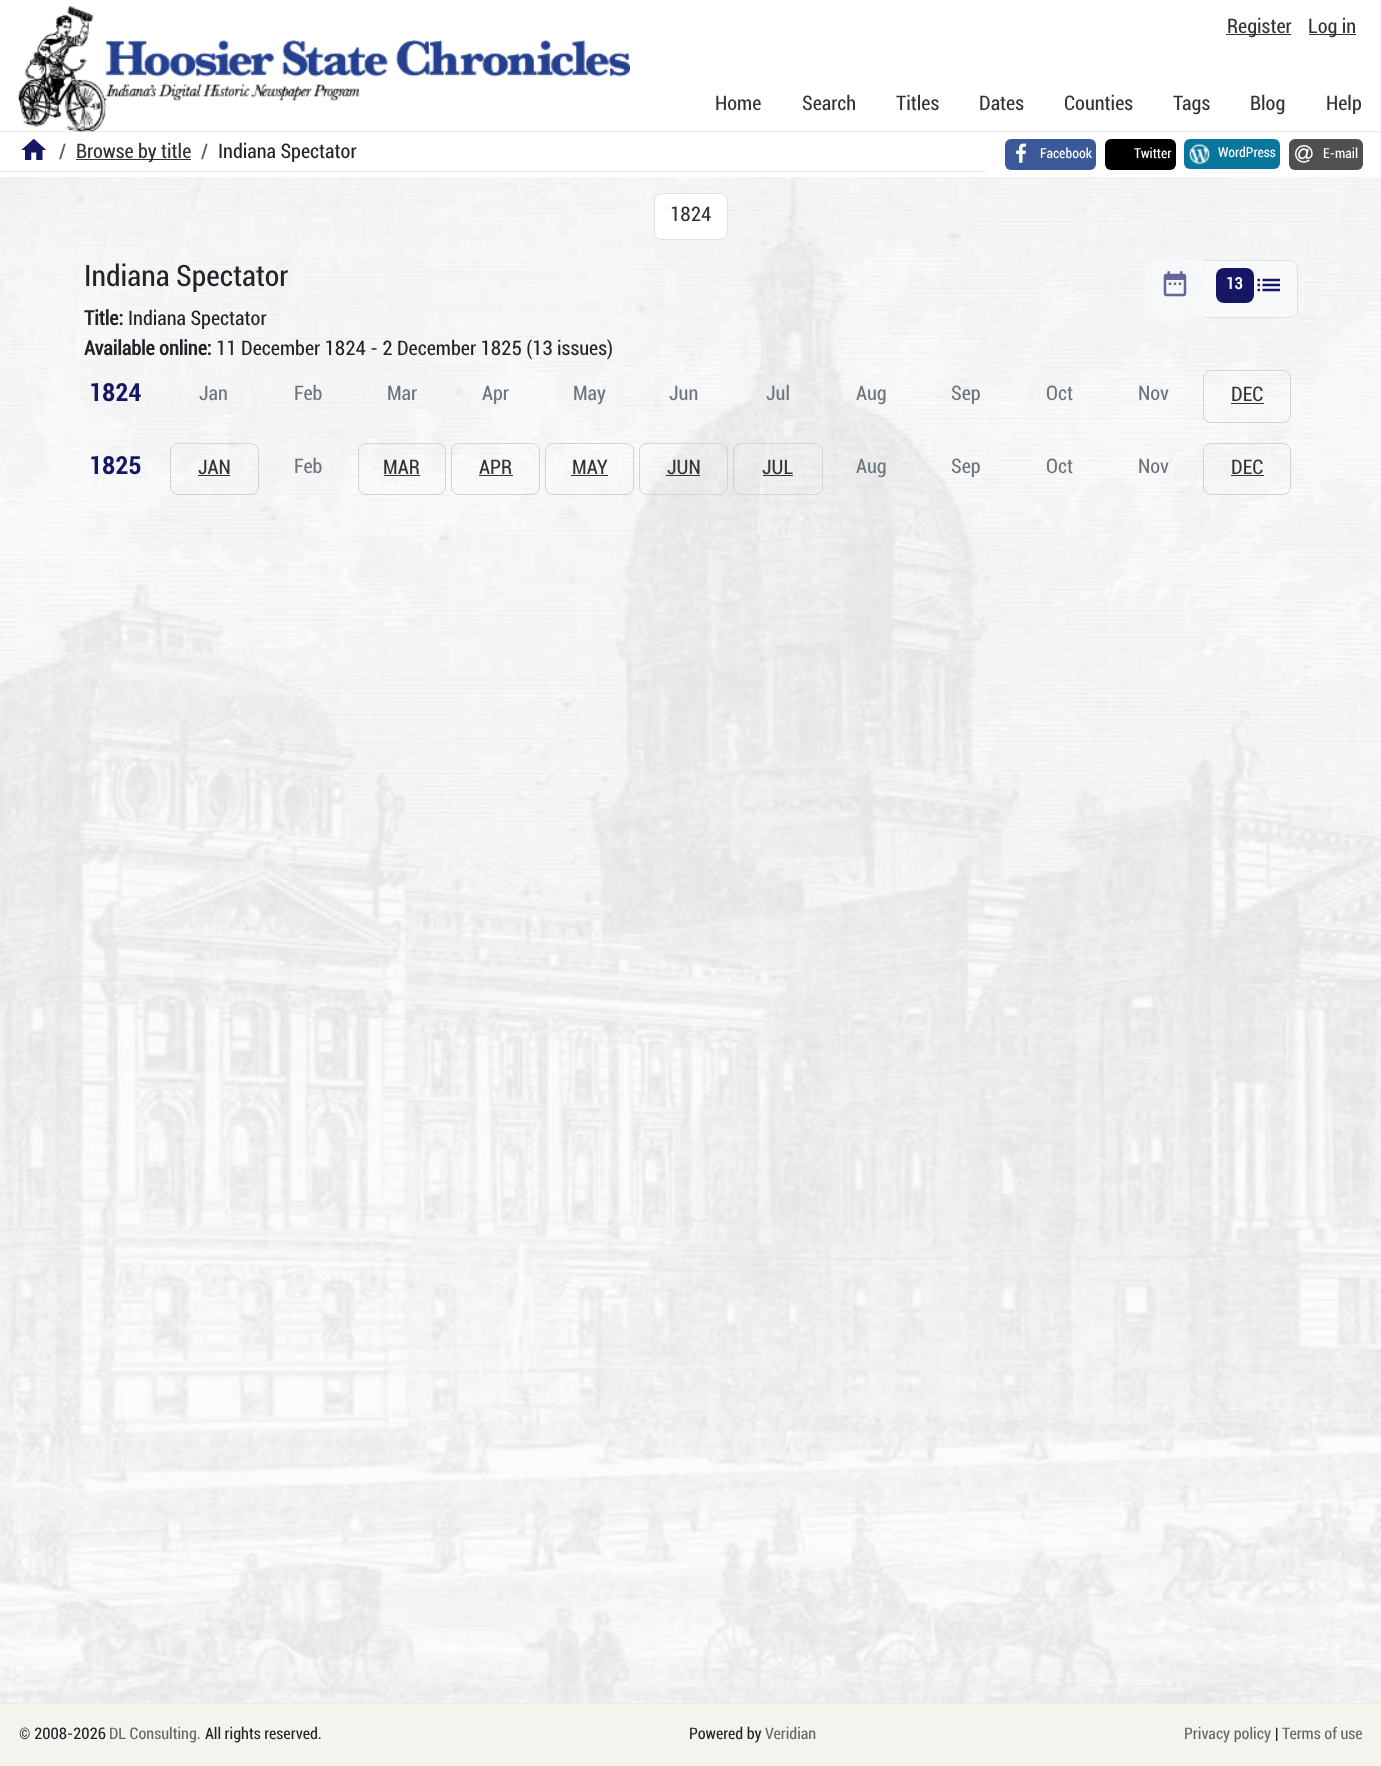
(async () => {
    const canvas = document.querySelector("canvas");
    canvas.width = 1381;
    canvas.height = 1766;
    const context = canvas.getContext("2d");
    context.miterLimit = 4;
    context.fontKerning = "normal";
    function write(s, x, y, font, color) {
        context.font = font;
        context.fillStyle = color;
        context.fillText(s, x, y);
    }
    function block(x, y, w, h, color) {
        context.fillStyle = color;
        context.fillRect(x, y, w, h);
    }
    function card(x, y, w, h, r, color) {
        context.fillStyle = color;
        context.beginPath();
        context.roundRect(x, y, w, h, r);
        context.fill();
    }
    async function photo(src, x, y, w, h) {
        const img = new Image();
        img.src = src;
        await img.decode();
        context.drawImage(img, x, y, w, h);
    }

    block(0, 0, 1381, 1766, "rgb(255, 255, 255)");
    block(1226, 34, 65, 1, "rgb(51, 51, 51)");
    write("Register", 1227, 33, "20px Roboto", "rgb(51, 51, 51)");
    block(1309, 34, 47, 1, "rgb(51, 51, 51)");
    write("Log in", 1308, 33, "20px Roboto", "rgb(51, 51, 51)");
    block(0, 131, 1381, 1, "rgb(233, 236, 239)");
    await photo("media/1.png", 18, 6, 612, 126);
    write("Home", 715, 110, "20px Roboto", "rgb(51, 51, 51)");
    write("Search", 802, 110, "20px Roboto", "rgb(51, 51, 51)");
    write("Titles", 896, 110, "20px Roboto", "rgb(51, 51, 51)");
    write("Dates", 979, 110, "20px Roboto", "rgb(51, 51, 51)");
    write("Counties", 1064, 110, "20px Roboto", "rgb(51, 51, 51)");
    write("Tags", 1173, 110, "20px Roboto", "rgb(51, 51, 51)");
    write("Blog", 1250, 110, "20px Roboto", "rgb(51, 51, 51)");
    write("Help", 1326, 110, "20px Roboto", "rgb(51, 51, 51)");
    block(0, 171, 986, 1, "rgb(233, 236, 239)");
    await photo("media/2.png", 21, 138, 26, 22);
    write("/", 59, 158, "20px Roboto", "rgb(89, 92, 95)");
    block(76, 159, 115, 1, "rgb(51, 51, 51)");
    write("Browse by title", 76, 158, "20px Roboto", "rgb(51, 51, 51)");
    write("/", 201, 158, "20px Roboto", "rgb(89, 92, 95)");
    write("Indiana Spectator", 218, 158, "20px Roboto", "rgb(33, 37, 41)");
    card(1005, 139, 91, 31, 6, "rgb(59, 89, 152)");
    await photo("media/3.png", 1016, 143, 11, 20);
    write("Facebook", 1040, 158, "13.75px Roboto", "rgb(255, 255, 255)");
    card(1105, 139, 71, 31, 6, "rgb(0, 0, 0)");
    write("Twitter", 1134, 158, "13.75px Roboto", "rgb(255, 255, 255)");
    card(1184, 139, 96, 30, 6, "rgb(9, 118, 157)");
    await photo("media/4.png", 1189, 143, 22, 22);
    write("WordPress", 1218, 157, "13.75px Roboto", "rgb(255, 255, 255)");
    card(1289, 139, 74, 31, 6, "rgb(80, 80, 80)");
    await photo("media/5.png", 1295, 145, 18, 18);
    write("E-mail", 1323, 158, "13.75px Roboto", "rgb(255, 255, 255)");
    await photo("media/6.png", 0, 177, 1381, 1526);
    context.beginPath();
    context.roundRect(654.5, 193.5, 73, 46, 7.5);
    context.fill();
    context.strokeStyle = "rgb(222, 226, 230)";
    context.stroke();
    write("1824", 670, 221, "20px Roboto", "rgb(51, 51, 51)");
    write("Indiana Spectator", 84, 286, "29.5px Roboto", "rgb(33, 37, 41)");
    context.fillStyle = "rgb(248, 249, 250)";
    context.beginPath();
    context.roundRect(1203.5, 260.5, 94, 57, [0, 7.5, 7.5, 0]);
    context.fill();
    context.stroke();
    context.fillStyle = "rgba(248, 249, 250, 0.65)";
    context.beginPath();
    context.roundRect(1146, 260, 58, 58, [8, 0, 0, 8]);
    context.fill();
    context.beginPath();
    context.roundRect(1146.5, 260.5, 57, 57, [7.5, 0, 0, 7.5]);
    context.strokeStyle = "rgba(248, 249, 250, 0.65)";
    context.stroke();
    await photo("media/7.png", 1163, 271, 24, 26);
    card(1216, 268, 38, 35, 8, "rgb(21, 23, 100)");
    write("13", 1226, 289, "bold 16px Roboto", "rgb(255, 255, 255)");
    await photo("media/8.png", 1257, 278, 23, 14);
    write("Title:", 84, 325, "bold 20px Roboto", "rgb(33, 37, 41)");
    write("Indiana Spectator", 128, 325, "20px Roboto", "rgb(33, 37, 41)");
    write("Available online:", 84, 355, "bold 20px Roboto", "rgb(33, 37, 41)");
    write("11 December 1824 - 2 December 1825 (13 issues)", 216, 355, "20px Roboto", "rgb(33, 37, 41)");
    write("1824", 89, 401, "bold 25px 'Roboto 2'", "rgb(21, 23, 100)");
    write("Jan", 199, 400, "20px Roboto", "rgb(108, 117, 125)");
    write("Feb", 294, 400, "20px Roboto", "rgb(108, 117, 125)");
    write("Mar", 387, 400, "20px Roboto", "rgb(108, 117, 125)");
    write("Apr", 482, 400, "20px Roboto", "rgb(108, 117, 125)");
    write("May", 573, 400, "20px Roboto", "rgb(108, 117, 125)");
    write("Jun", 669, 400, "20px Roboto", "rgb(108, 117, 125)");
    write("Jul", 766, 400, "20px Roboto", "rgb(108, 117, 125)");
    write("Aug", 856, 400, "20px Roboto", "rgb(108, 117, 125)");
    write("Sep", 951, 400, "20px Roboto", "rgb(108, 117, 125)");
    write("Oct", 1046, 400, "20px Roboto", "rgb(108, 117, 125)");
    write("Nov", 1138, 400, "20px Roboto", "rgb(108, 117, 125)");
    context.beginPath();
    context.roundRect(1203.5, 370.5, 87, 52, 7.5);
    context.strokeStyle = "rgb(206, 212, 218)";
    context.stroke();
    write("DEC", 1231, 401, "20px Roboto", "rgb(51, 51, 51)");
    block(1231, 403, 33, 1, "rgb(51, 51, 51)");
    write("1825", 89, 474, "bold 25px 'Roboto 2'", "rgb(21, 23, 100)");
    context.beginPath();
    context.roundRect(170.5, 443.5, 88, 51, 7.5);
    context.stroke();
    write("JAN", 198, 474, "20px Roboto", "rgb(51, 51, 51)");
    block(198, 475, 32, 1, "rgb(51, 51, 51)");
    write("Feb", 294, 473, "20px Roboto", "rgb(108, 117, 125)");
    context.beginPath();
    context.roundRect(358.5, 443.5, 87, 51, 7.5);
    context.stroke();
    write("MAR", 383, 474, "20px Roboto", "rgb(51, 51, 51)");
    block(384, 475, 36, 1, "rgb(51, 51, 51)");
    context.beginPath();
    context.roundRect(451.5, 443.5, 88, 51, 7.5);
    context.stroke();
    write("APR", 479, 474, "20px Roboto", "rgb(51, 51, 51)");
    block(479, 475, 34, 1, "rgb(51, 51, 51)");
    context.beginPath();
    context.roundRect(545.5, 443.5, 88, 51, 7.5);
    context.stroke();
    write("MAY", 572, 474, "20px Roboto", "rgb(51, 51, 51)");
    block(571, 475, 37, 1, "rgb(51, 51, 51)");
    context.beginPath();
    context.roundRect(639.5, 443.5, 88, 51, 7.5);
    context.stroke();
    write("JUN", 667, 474, "20px Roboto", "rgb(51, 51, 51)");
    block(666, 475, 34, 1, "rgb(51, 51, 51)");
    context.beginPath();
    context.roundRect(733.5, 443.5, 89, 51, 7.5);
    context.stroke();
    write("JUL", 762, 474, "20px Roboto", "rgb(51, 51, 51)");
    block(763, 475, 30, 1, "rgb(51, 51, 51)");
    write("Aug", 856, 473, "20px Roboto", "rgb(108, 117, 125)");
    write("Sep", 951, 473, "20px Roboto", "rgb(108, 117, 125)");
    write("Oct", 1046, 473, "20px Roboto", "rgb(108, 117, 125)");
    write("Nov", 1138, 473, "20px Roboto", "rgb(108, 117, 125)");
    context.beginPath();
    context.roundRect(1203.5, 443.5, 87, 51, 7.5);
    context.stroke();
    write("DEC", 1231, 474, "20px Roboto", "rgb(51, 51, 51)");
    block(1231, 475, 33, 1, "rgb(51, 51, 51)");
    block(0, 1704, 1381, 62, "rgb(245, 243, 237)");
    block(0, 1703, 1381, 1, "rgb(233, 236, 239)");
    write("© 2008-2026", 19, 1739, "16px Roboto", "rgb(33, 37, 41)");
    write("DL Consulting.", 109, 1739, "16px Roboto", "rgb(102, 102, 102)");
    write("All rights reserved.", 205, 1739, "16px Roboto", "rgb(33, 37, 41)");
    write("Powered by", 689, 1739, "16px Roboto", "rgb(33, 37, 41)");
    write("Veridian", 765, 1739, "16px Roboto", "rgb(102, 102, 102)");
    write("Privacy policy", 1184, 1739, "16px Roboto", "rgb(102, 102, 102)");
    write("|", 1275, 1739, "16px Roboto", "rgb(33, 37, 41)");
    write("Terms of use", 1282, 1739, "16px Roboto", "rgb(102, 102, 102)");
})();
